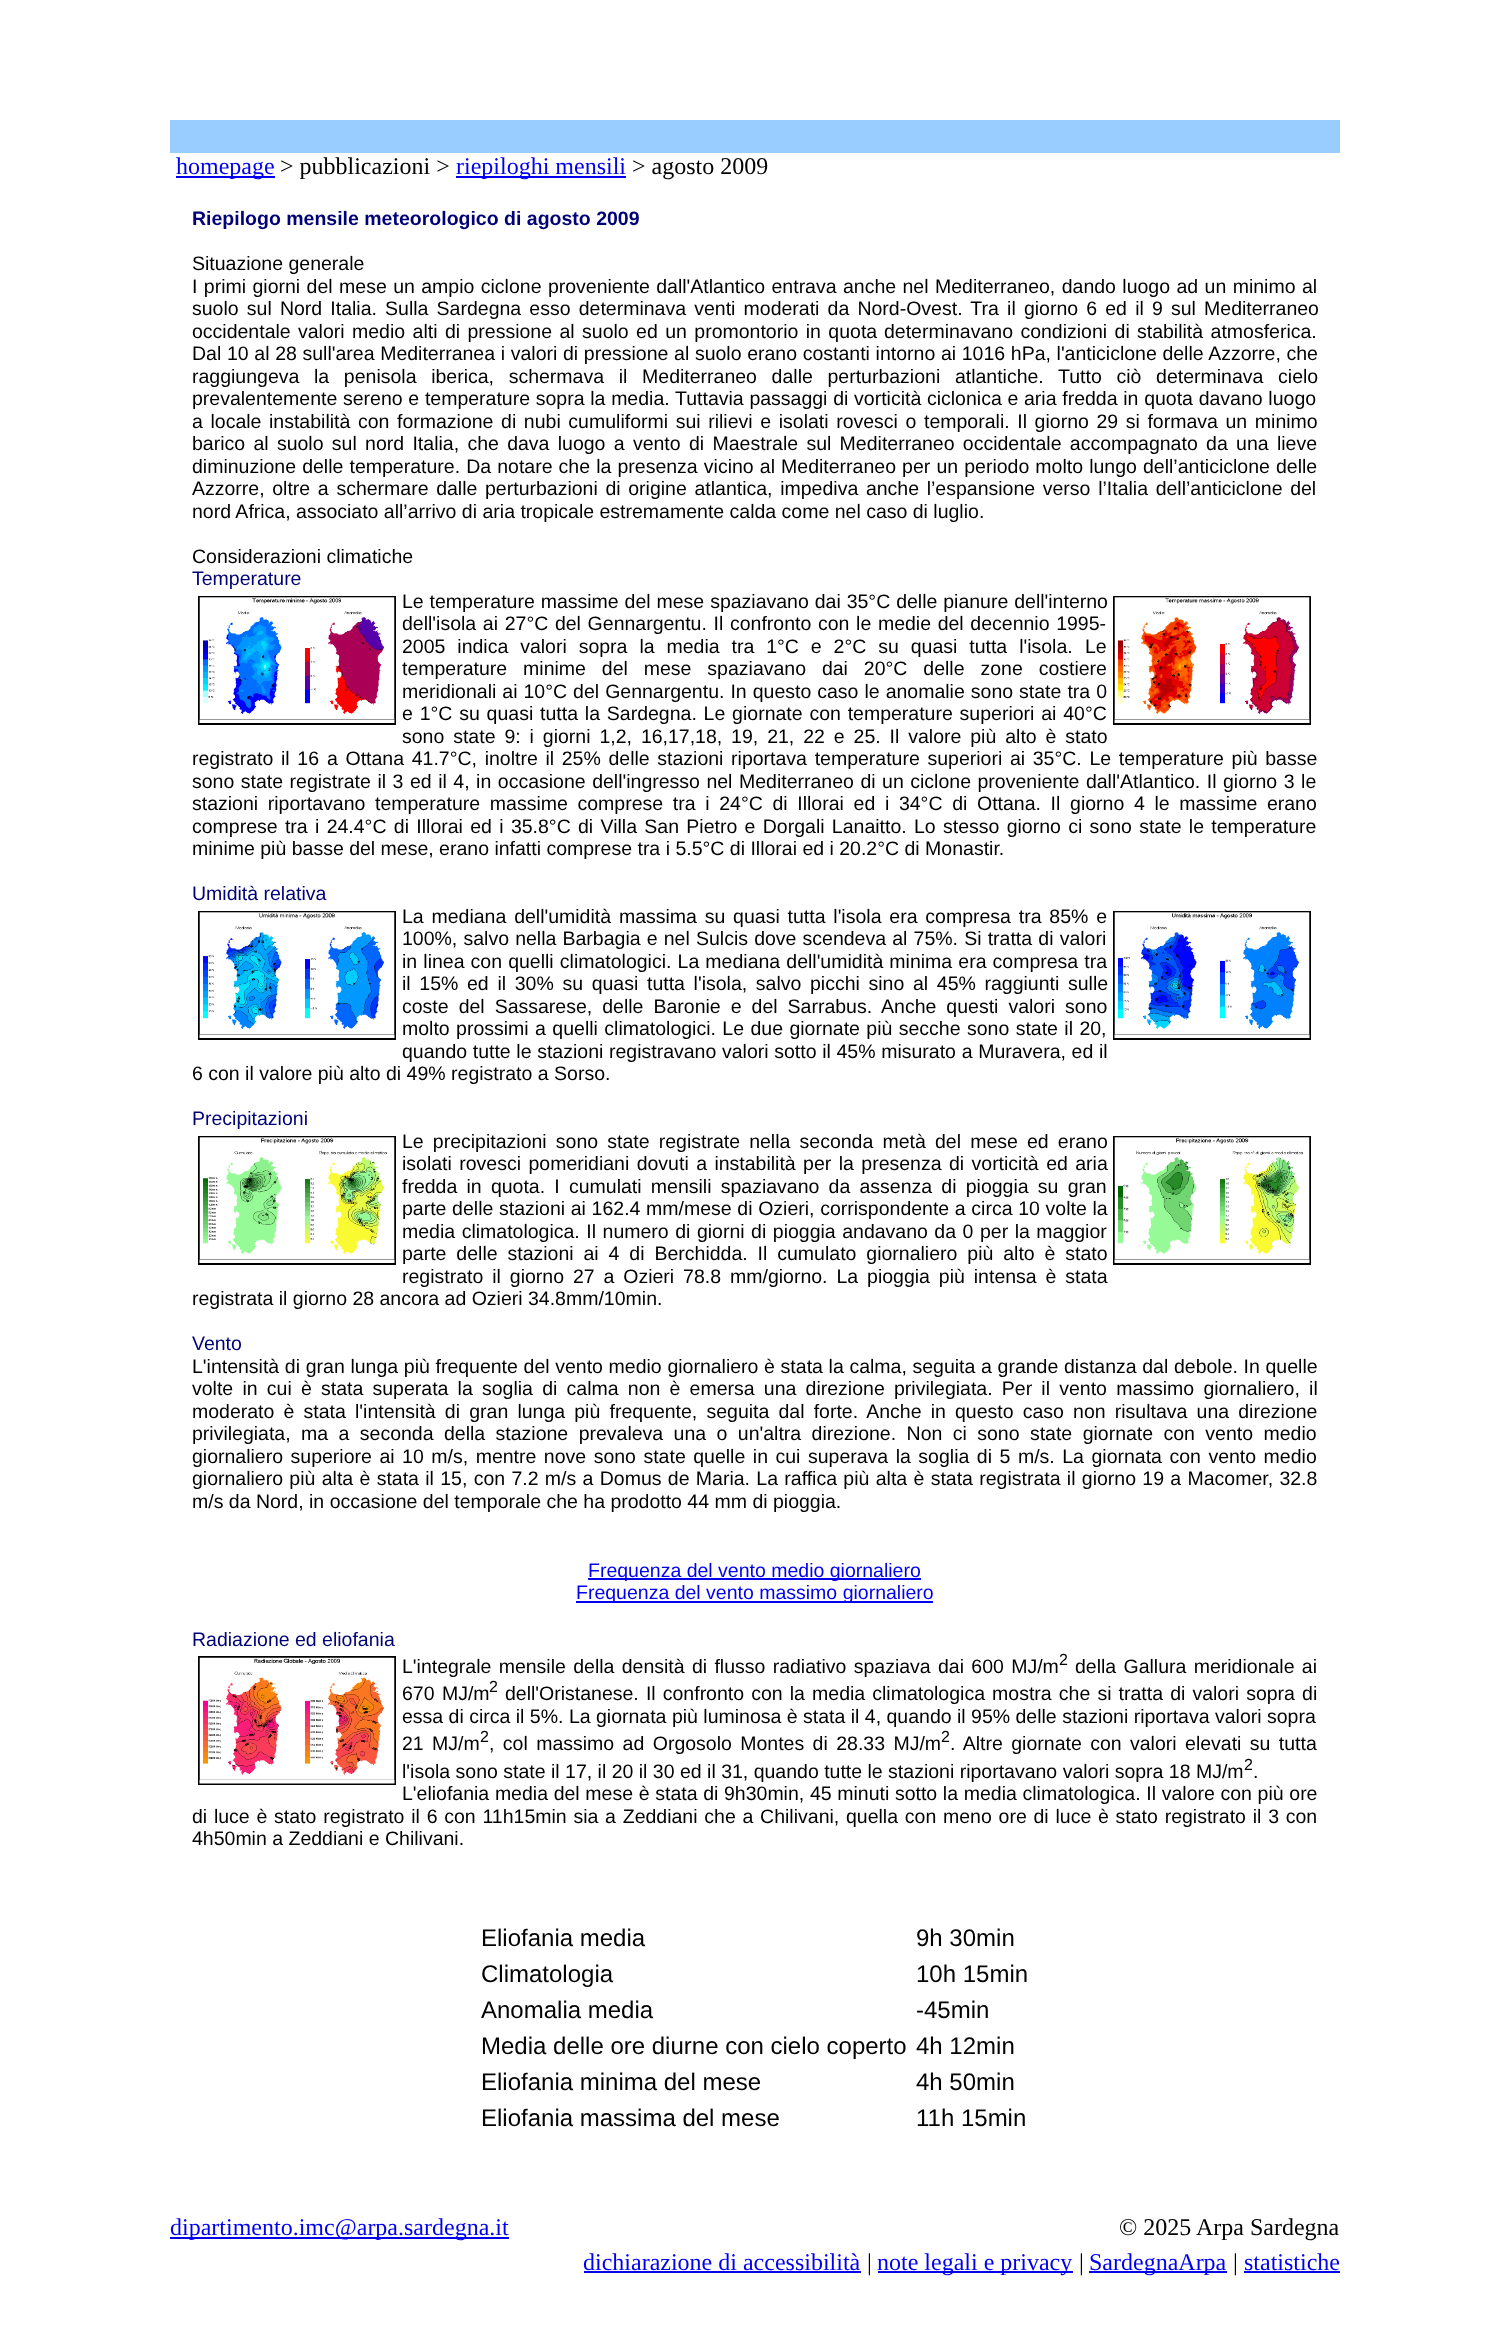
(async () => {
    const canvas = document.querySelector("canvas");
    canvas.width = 1509;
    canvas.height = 2347;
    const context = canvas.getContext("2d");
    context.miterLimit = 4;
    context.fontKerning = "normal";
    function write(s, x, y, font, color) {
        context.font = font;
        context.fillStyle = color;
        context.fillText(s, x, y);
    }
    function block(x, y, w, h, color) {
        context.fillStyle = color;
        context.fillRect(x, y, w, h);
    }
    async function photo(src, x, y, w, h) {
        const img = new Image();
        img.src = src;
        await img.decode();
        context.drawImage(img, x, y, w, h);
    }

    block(0, 0, 1509, 2347, "rgb(255, 255, 255)");
    block(170, 120, 1170, 33, "rgb(153, 204, 255)");
    block(176, 176, 99, 2, "rgb(0, 0, 238)");
    write("homepage", 176, 174, "24px Liberation Serif", "rgb(0, 0, 238)");
    write("> pubblicazioni >", 280, 174, "24px Liberation Serif", "rgb(0, 0, 0)");
    block(456, 176, 170, 2, "rgb(0, 0, 238)");
    write("riepiloghi mensili", 456, 174, "24px Liberation Serif", "rgb(0, 0, 238)");
    write("> agosto 2009", 632, 174, "24px Liberation Serif", "rgb(0, 0, 0)");
    write("Riepilogo mensile meteorologico di agosto 2009", 192, 225, "bold 19.5px Liberation Sans", "rgb(0, 0, 119)");
    write("Situazione generale", 192, 270, "19.5px Liberation Sans", "rgb(0, 0, 0)");
    context.wordSpacing = "1px";
    write("I primi giorni del mese un ampio ciclone proveniente dall'Atlantico entrava anche nel Mediterraneo, dando luogo ad un minimo al", 192, 293, "19.5px Liberation Sans", "rgb(0, 0, 0)");
    context.wordSpacing = "2.75px";
    write("suolo sul Nord Italia. Sulla Sardegna esso determinava venti moderati da Nord-Ovest. Tra il giorno 6 ed il 9 sul Mediterraneo", 192, 315, "19.5px Liberation Sans", "rgb(0, 0, 0)");
    context.wordSpacing = "0px";
    write("occidentale", 192, 338, "19.5px Liberation Sans", "rgb(0, 0, 0)");
    context.wordSpacing = "2px";
    write("valori medio alti di pressione al suolo ed un promontorio in quota", 298, 338, "19.5px Liberation Sans", "rgb(0, 0, 0)");
    write("determinavano condizioni di", 884, 338, "19.5px Liberation Sans", "rgb(0, 0, 0)");
    write("stabilità atmosferica.", 1137, 338, "19.5px Liberation Sans", "rgb(0, 0, 0)");
    context.wordSpacing = "0.25px";
    write("Dal 10 al 28 sull'area Mediterranea i valori di pressione al suolo erano costanti intorno ai 1016 hPa, l'anticiclone delle Azzorre, che", 192, 360, "19.5px Liberation Sans", "rgb(0, 0, 0)");
    context.wordSpacing = "9.25px";
    write("raggiungeva la penisola iberica, schermava il Mediterraneo dalle perturbazioni atlantiche. Tutto ciò determinava cielo", 192, 383, "19.5px Liberation Sans", "rgb(0, 0, 0)");
    context.wordSpacing = "0.3px";
    write("prevalentemente sereno e temperature sopra la media. Tuttavia passaggi di vorticità ciclonica e aria fredda in quota davano luogo", 192, 405, "19.5px Liberation Sans", "rgb(0, 0, 0)");
    context.wordSpacing = "2.2px";
    write("a locale instabilità con formazione di nubi cumuliformi sui rilievi e isolati rovesci o temporali. Il giorno 29 si formava un minimo", 192, 428, "19.5px Liberation Sans", "rgb(0, 0, 0)");
    context.wordSpacing = "2.9px";
    write("barico al suolo sul nord Italia, che dava luogo a vento di Maestrale sul Mediterraneo occidentale accompagnato da una lieve", 192, 450, "19.5px Liberation Sans", "rgb(0, 0, 0)");
    context.wordSpacing = "0.7px";
    write("diminuzione delle temperature. Da notare che la presenza vicino al Mediterraneo per un periodo molto lungo dell’anticiclone delle", 192, 473, "19.5px Liberation Sans", "rgb(0, 0, 0)");
    context.wordSpacing = "2.25px";
    write("Azzorre, oltre a schermare dalle perturbazioni di origine atlantica, impediva anche l’espansione verso l’Italia dell’anticiclone del", 192, 495, "19.5px Liberation Sans", "rgb(0, 0, 0)");
    context.wordSpacing = "0px";
    write("nord Africa, associato all’arrivo di aria tropicale estremamente calda come nel caso di luglio.", 192, 518, "19.5px Liberation Sans", "rgb(0, 0, 0)");
    write("Considerazioni climatiche", 192, 563, "19.5px Liberation Sans", "rgb(0, 0, 0)");
    write("Temperature", 192, 585, "19.5px Liberation Sans", "rgb(0, 0, 119)");
    context.strokeStyle = "rgb(0, 0, 0)";
    context.lineWidth = 2;
    context.strokeRect(199, 597, 196, 127);
    await photo("media/1.png", 199, 597, 196, 126);
    context.wordSpacing = "0.5px";
    write("Le temperature massime del mese spaziavano dai 35°C delle pianure dell'interno", 402, 608, "19.5px Liberation Sans", "rgb(0, 0, 0)");
    context.strokeRect(1114, 597, 196, 127);
    await photo("media/2.png", 1114, 597, 196, 126);
    context.wordSpacing = "1.25px";
    write("dell'isola ai 27°C del Gennargentu. Il confronto con le medie del decennio 1995-", 402, 630, "19.5px Liberation Sans", "rgb(0, 0, 0)");
    context.wordSpacing = "6.5px";
    write("2005 indica valori sopra la media tra 1°C e 2°C su quasi tutta l'isola.", 402, 653, "19.5px Liberation Sans", "rgb(0, 0, 0)");
    context.wordSpacing = "0px";
    write("Le", 1085, 653, "19.5px Liberation Sans", "rgb(0, 0, 0)");
    context.wordSpacing = "10.5px";
    write("temperature minime del mese spaziavano dai 20°C delle zone costiere", 402, 675, "19.5px Liberation Sans", "rgb(0, 0, 0)");
    context.wordSpacing = "0.6px";
    write("meridionali ai 10°C del Gennargentu. In questo caso le anomalie sono state tra 0", 402, 698, "19.5px Liberation Sans", "rgb(0, 0, 0)");
    context.wordSpacing = "1.4px";
    write("e 1°C su quasi tutta la Sardegna. Le giornate con temperature superiori ai 40°C", 402, 720, "19.5px Liberation Sans", "rgb(0, 0, 0)");
    context.wordSpacing = "3.5px";
    write("sono state 9: i giorni 1,2, 16,17,18, 19, 21, 22 e 25. Il valore più alto è stato", 402, 743, "19.5px Liberation Sans", "rgb(0, 0, 0)");
    context.wordSpacing = "2.25px";
    write("registrato il 16", 192, 765, "19.5px Liberation Sans", "rgb(0, 0, 0)");
    write("a Ottana 41.7°C, inoltre il 25% delle stazioni riportava temperature superiori ai 35°C. Le temperature più basse", 327, 765, "19.5px Liberation Sans", "rgb(0, 0, 0)");
    context.wordSpacing = "1.1px";
    write("sono state registrate il 3 ed il 4, in occasione dell'ingresso nel Mediterraneo di un ciclone proveniente dall'Atlantico. Il giorno 3 le", 192, 788, "19.5px Liberation Sans", "rgb(0, 0, 0)");
    context.wordSpacing = "4.25px";
    write("stazioni riportavano temperature massime comprese tra i 24°C di Illorai ed i 34°C di Ottana. Il giorno 4 le massime erano", 192, 810, "19.5px Liberation Sans", "rgb(0, 0, 0)");
    context.wordSpacing = "1.9px";
    write("comprese tra i 24.4°C di Illorai ed i 35.8°C di Villa San Pietro e Dorgali Lanaitto. Lo stesso giorno ci sono state le temperature", 192, 833, "19.5px Liberation Sans", "rgb(0, 0, 0)");
    context.wordSpacing = "0px";
    write("minime più basse del mese, erano infatti comprese tra i 5.5°C di Illorai ed i 20.2°C di Monastir.", 192, 855, "19.5px Liberation Sans", "rgb(0, 0, 0)");
    write("Umidità relativa", 192, 900, "19.5px Liberation Sans", "rgb(0, 0, 119)");
    context.strokeRect(199, 912, 196, 127);
    await photo("media/3.png", 199, 912, 196, 126);
    context.wordSpacing = "2.4px";
    write("La mediana dell'umidità massima su quasi tutta l'isola era compresa tra 85% e", 402, 923, "19.5px Liberation Sans", "rgb(0, 0, 0)");
    context.strokeRect(1114, 912, 196, 127);
    await photo("media/4.png", 1114, 912, 196, 126);
    context.wordSpacing = "0.75px";
    write("100%, salvo nella Barbagia e nel Sulcis dove scendeva al 75%. Si tratta di valori", 402, 945, "19.5px Liberation Sans", "rgb(0, 0, 0)");
    context.wordSpacing = "0.7px";
    write("in linea con quelli climatologici. La mediana dell'umidità minima era compresa tra", 402, 968, "19.5px Liberation Sans", "rgb(0, 0, 0)");
    context.wordSpacing = "3.25px";
    write("il 15% ed il 30% su quasi tutta l'isola, salvo picchi sino al 45% raggiunti sulle", 402, 990, "19.5px Liberation Sans", "rgb(0, 0, 0)");
    context.wordSpacing = "4.6px";
    write("coste del Sassarese, delle Baronie e del Sarrabus. Anche questi valori sono", 402, 1013, "19.5px Liberation Sans", "rgb(0, 0, 0)");
    context.wordSpacing = "1px";
    write("molto prossimi a quelli climatologici. Le due giornate più secche sono state il 20,", 402, 1035, "19.5px Liberation Sans", "rgb(0, 0, 0)");
    context.wordSpacing = "0.25px";
    write("quando tutte le stazioni registravano valori sotto il 45% misurato a Muravera, ed il", 402, 1058, "19.5px Liberation Sans", "rgb(0, 0, 0)");
    context.wordSpacing = "0px";
    write("6 con il valore più alto di 49% registrato a Sorso.", 192, 1080, "19.5px Liberation Sans", "rgb(0, 0, 0)");
    write("Precipitazioni", 192, 1125, "19.5px Liberation Sans", "rgb(0, 0, 119)");
    context.strokeRect(199, 1137, 196, 127);
    await photo("media/5.png", 199, 1137, 196, 126);
    context.wordSpacing = "3.75px";
    write("Le precipitazioni sono state registrate nella seconda metà del mese ed erano", 402, 1148, "19.5px Liberation Sans", "rgb(0, 0, 0)");
    context.strokeRect(1114, 1137, 196, 127);
    await photo("media/6.png", 1114, 1137, 196, 126);
    context.wordSpacing = "2px";
    write("isolati rovesci pomeridiani dovuti a instabilità per la presenza di vorticità ed aria", 402, 1170, "19.5px Liberation Sans", "rgb(0, 0, 0)");
    context.wordSpacing = "3.8px";
    write("fredda in quota. I cumulati mensili spaziavano da assenza di pioggia su gran", 402, 1193, "19.5px Liberation Sans", "rgb(0, 0, 0)");
    context.wordSpacing = "0.25px";
    write("parte delle stazioni ai 162.4 mm/mese di Ozieri, corrispondente a circa 10 volte la", 402, 1215, "19.5px Liberation Sans", "rgb(0, 0, 0)");
    context.wordSpacing = "1.1px";
    write("media climatologica. Il numero di giorni di pioggia andavano da 0 per la maggior", 402, 1238, "19.5px Liberation Sans", "rgb(0, 0, 0)");
    context.wordSpacing = "4.5px";
    write("parte delle stazioni ai 4 di Berchidda. Il cumulato giornaliero più alto è stato", 402, 1260, "19.5px Liberation Sans", "rgb(0, 0, 0)");
    context.wordSpacing = "3.5px";
    write("registrato il giorno 27 a Ozieri 78.8 mm/giorno. La pioggia più intensa è stata", 402, 1283, "19.5px Liberation Sans", "rgb(0, 0, 0)");
    context.wordSpacing = "0px";
    write("registrata il giorno 28 ancora ad Ozieri 34.8mm/10min.", 192, 1305, "19.5px Liberation Sans", "rgb(0, 0, 0)");
    write("Vento", 192, 1350, "19.5px Liberation Sans", "rgb(0, 0, 119)");
    context.wordSpacing = "0.25px";
    write("L'intensità di gran lunga più frequente del vento medio giornaliero è stata la calma, seguita a grande distanza dal debole. In quelle", 192, 1373, "19.5px Liberation Sans", "rgb(0, 0, 0)");
    context.wordSpacing = "3.8px";
    write("volte in cui è stata superata la soglia di calma non è emersa una direzione privilegiata. Per il vento massimo giornaliero, il", 192, 1395, "19.5px Liberation Sans", "rgb(0, 0, 0)");
    context.wordSpacing = "3.75px";
    write("moderato è stata l'intensità di gran lunga più frequente, seguita dal forte. Anche in questo caso non risultava una direzione", 192, 1418, "19.5px Liberation Sans", "rgb(0, 0, 0)");
    context.wordSpacing = "5px";
    write("privilegiata, ma a seconda della stazione prevaleva una o un'altra direzione. Non ci sono state giornate con vento medio", 192, 1440, "19.5px Liberation Sans", "rgb(0, 0, 0)");
    context.wordSpacing = "2.1px";
    write("giornaliero superiore ai 10 m/s, mentre nove sono state quelle in cui superava la soglia di 5 m/s. La giornata con vento medio", 192, 1463, "19.5px Liberation Sans", "rgb(0, 0, 0)");
    context.wordSpacing = "0.9px";
    write("giornaliero più alta è stata il 15, con 7.2 m/s a Domus de Maria. La raffica più alta è stata registrata il giorno 19 a Macomer, 32.8", 192, 1485, "19.5px Liberation Sans", "rgb(0, 0, 0)");
    context.wordSpacing = "0px";
    write("m/s da Nord, in occasione del temporale che ha prodotto 44 mm di pioggia.", 192, 1508, "19.5px Liberation Sans", "rgb(0, 0, 0)");
    block(588, 1578, 333, 2, "rgb(0, 0, 238)");
    write("Frequenza del vento medio giornaliero", 588, 1577, "19.5px Liberation Sans", "rgb(0, 0, 238)");
    block(576, 1601, 357, 2, "rgb(0, 0, 238)");
    write("Frequenza del vento massimo giornaliero", 576, 1599, "19.5px Liberation Sans", "rgb(0, 0, 238)");
    write("Radiazione ed eliofania", 192, 1646, "19.5px Liberation Sans", "rgb(0, 0, 119)");
    context.strokeRect(199, 1657, 196, 127);
    await photo("media/7.png", 199, 1657, 196, 127);
    context.wordSpacing = "1.9px";
    write("L'integrale mensile della densità di flusso radiativo spaziava dai 600 MJ/m", 402, 1673, "19.5px Liberation Sans", "rgb(0, 0, 0)");
    context.wordSpacing = "0px";
    write("2", 1059, 1665, "16px Liberation Sans", "rgb(0, 0, 0)");
    context.wordSpacing = "1.9px";
    write("della Gallura meridionale ai", 1075, 1673, "19.5px Liberation Sans", "rgb(0, 0, 0)");
    context.wordSpacing = "2px";
    write("670 MJ/m", 402, 1700, "19.5px Liberation Sans", "rgb(0, 0, 0)");
    context.wordSpacing = "0px";
    write("2", 489, 1692, "16px Liberation Sans", "rgb(0, 0, 0)");
    context.wordSpacing = "1.7px";
    write("dell'Oristanese. Il confronto con la media climatologica mostra che si tratta di valori sopra di", 505, 1700, "19.5px Liberation Sans", "rgb(0, 0, 0)");
    context.wordSpacing = "0px";
    write("essa di circa il 5%. La giornata più luminosa è stata il 4, quando il 95% delle stazioni riportava valori sopra", 402, 1723, "19.5px Liberation Sans", "rgb(0, 0, 0)");
    context.wordSpacing = "3px";
    write("21 MJ/m", 402, 1750, "19.5px Liberation Sans", "rgb(0, 0, 0)");
    context.wordSpacing = "0px";
    write("2", 480, 1742, "16px Liberation Sans", "rgb(0, 0, 0)");
    context.wordSpacing = "3px";
    write(", col massimo ad Orgosolo Montes di 28.33 MJ/m", 489, 1750, "19.5px Liberation Sans", "rgb(0, 0, 0)");
    context.wordSpacing = "0px";
    write("2", 941, 1742, "16px Liberation Sans", "rgb(0, 0, 0)");
    context.wordSpacing = "3px";
    write(". Altre giornate con valori elevati su tutta", 950, 1750, "19.5px Liberation Sans", "rgb(0, 0, 0)");
    context.wordSpacing = "0px";
    write("l'isola sono state il 17, il 20 il 30 ed il 31, quando tutte le stazioni riportavano valori sopra 18 MJ/m", 402, 1778, "19.5px Liberation Sans", "rgb(0, 0, 0)");
    write("2", 1244, 1770, "16px Liberation Sans", "rgb(0, 0, 0)");
    write(".", 1253, 1778, "19.5px Liberation Sans", "rgb(0, 0, 0)");
    context.wordSpacing = "0.25px";
    write("L'eliofania media del mese è stata di 9h30min, 45 minuti sotto la media climatologica. Il valore con più ore", 402, 1800, "19.5px Liberation Sans", "rgb(0, 0, 0)");
    context.wordSpacing = "1.35px";
    write("di luce è stato registrato il 6 con 11h15min sia a Zeddiani che a Chilivani, quella con meno ore di luce è stato registrato il 3 con", 192, 1823, "19.5px Liberation Sans", "rgb(0, 0, 0)");
    context.wordSpacing = "0px";
    write("4h50min a Zeddiani e Chilivani.", 192, 1845, "19.5px Liberation Sans", "rgb(0, 0, 0)");
    write("Eliofania media", 481, 1946, "24px Liberation Sans", "rgb(0, 0, 0)");
    write("9h 30min", 916, 1946, "24px Liberation Sans", "rgb(0, 0, 0)");
    write("Climatologia", 481, 1982, "24px Liberation Sans", "rgb(0, 0, 0)");
    write("10h 15min", 916, 1982, "24px Liberation Sans", "rgb(0, 0, 0)");
    write("Anomalia media", 481, 2018, "24px Liberation Sans", "rgb(0, 0, 0)");
    write("-45min", 916, 2018, "24px Liberation Sans", "rgb(0, 0, 0)");
    write("Media delle ore diurne con cielo coperto", 481, 2054, "24px Liberation Sans", "rgb(0, 0, 0)");
    write("4h 12min", 916, 2054, "24px Liberation Sans", "rgb(0, 0, 0)");
    write("Eliofania minima del mese", 481, 2090, "24px Liberation Sans", "rgb(0, 0, 0)");
    write("4h 50min", 916, 2090, "24px Liberation Sans", "rgb(0, 0, 0)");
    write("Eliofania massima del mese", 481, 2126, "24px Liberation Sans", "rgb(0, 0, 0)");
    write("11h 15min", 916, 2126, "24px Liberation Sans", "rgb(0, 0, 0)");
    block(170, 2237, 339, 2, "rgb(0, 0, 238)");
    write("dipartimento.imc@arpa.sardegna.it", 170, 2235, "24px Liberation Serif", "rgb(0, 0, 238)");
    write("© 2025 Arpa Sardegna", 1119, 2235, "24px Liberation Serif", "rgb(0, 0, 0)");
    write("dichiarazione di accessibilità", 583, 2270, "24px Liberation Serif", "rgb(0, 0, 238)");
    block(584, 2271, 277, 2, "rgb(0, 0, 238)");
    write("|", 867, 2270, "24px Liberation Serif", "rgb(0, 0, 0)");
    block(878, 2271, 195, 2, "rgb(0, 0, 238)");
    write("note legali e privacy", 877, 2270, "24px Liberation Serif", "rgb(0, 0, 238)");
    write("|", 1079, 2270, "24px Liberation Serif", "rgb(0, 0, 0)");
    block(1089, 2271, 138, 2, "rgb(0, 0, 238)");
    write("SardegnaArpa", 1089, 2270, "24px Liberation Serif", "rgb(0, 0, 238)");
    write("|", 1233, 2270, "24px Liberation Serif", "rgb(0, 0, 0)");
    write("statistiche", 1244, 2270, "24px Liberation Serif", "rgb(0, 0, 238)");
    block(1244, 2271, 96, 2, "rgb(0, 0, 238)");
})();
